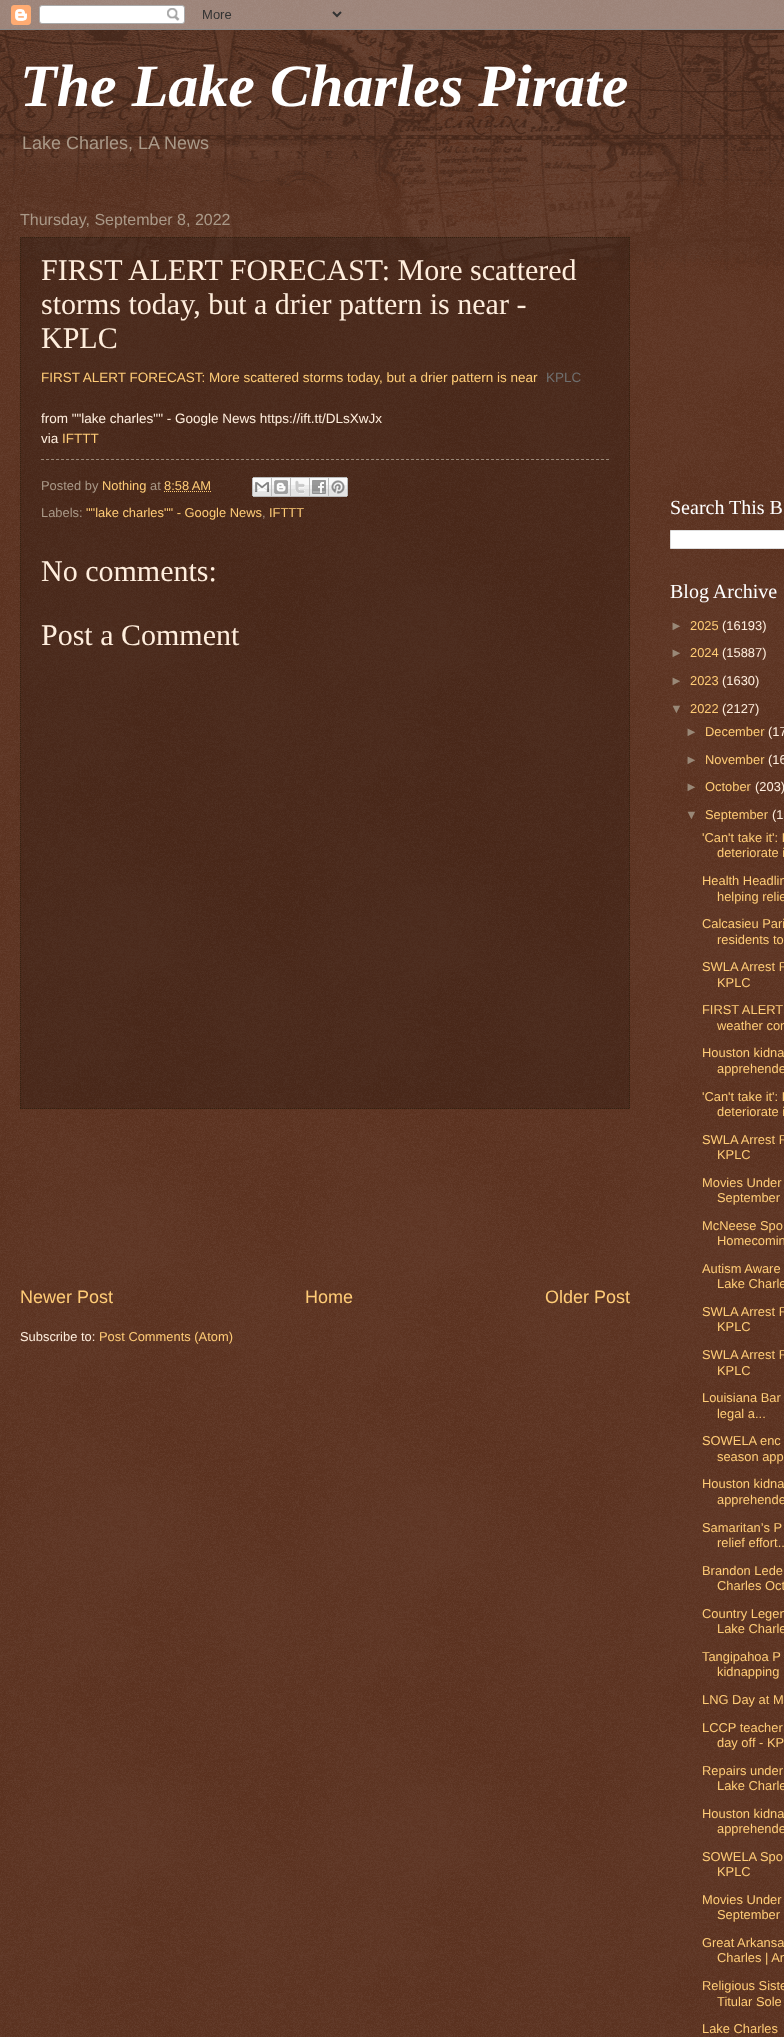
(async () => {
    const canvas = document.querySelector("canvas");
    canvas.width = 784;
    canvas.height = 2037;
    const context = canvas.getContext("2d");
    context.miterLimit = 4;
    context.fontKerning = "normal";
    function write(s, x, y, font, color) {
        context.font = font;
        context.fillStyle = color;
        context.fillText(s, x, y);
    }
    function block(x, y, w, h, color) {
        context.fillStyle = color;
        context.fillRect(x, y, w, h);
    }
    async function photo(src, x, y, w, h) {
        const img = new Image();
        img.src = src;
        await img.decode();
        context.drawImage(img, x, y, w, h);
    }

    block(0, 0, 784, 2037, "rgb(68, 21, 0)");
    await photo("media/1.png", 0, 0, 784, 2037);
    await photo("media/2.png", 0, 0, 784, 30);
    await photo("media/3.png", 0, 30, 784, 240);
    write("The Lake Charles Pirate", 20, 106, "italic bold 60px Liberation Serif", "rgb(255, 255, 255)");
    write("Lake Charles, LA News", 22, 149, "18px Liberation Sans", "rgb(170, 153, 136)");
    write("Thursday, September 8, 2022", 20, 225, "16px Liberation Sans", "rgb(170, 153, 136)");
    block(20, 237, 610, 872, "rgba(0, 0, 0, 0.2)");
    context.beginPath();
    context.moveTo(20, 237.5);
    context.lineTo(630, 237.5);
    context.strokeStyle = "rgb(51, 34, 17)";
    context.setLineDash([1, 1]);
    context.stroke();
    context.beginPath();
    context.moveTo(629.5, 237);
    context.lineTo(629.5, 1109);
    context.stroke();
    context.beginPath();
    context.moveTo(20, 1108.5);
    context.lineTo(630, 1108.5);
    context.stroke();
    context.beginPath();
    context.moveTo(20.5, 237);
    context.lineTo(20.5, 1109);
    context.stroke();
    write("FIRST ALERT FORECAST: More scattered", 41, 280, "30px Liberation Serif", "rgb(255, 238, 221)");
    write("storms today, but a drier pattern is near -", 41, 314, "30px Liberation Serif", "rgb(255, 238, 221)");
    write("KPLC", 41, 348, "30px Liberation Serif", "rgb(255, 238, 221)");
    write("FIRST ALERT FORECAST: More scattered storms today, but a drier pattern is near", 41, 382, "13.5px Liberation Sans", "rgb(255, 204, 119)");
    write("KPLC", 546, 382, "13.5px Liberation Sans", "rgb(111, 111, 111)");
    write("from \"\"lake charles\"\" - Google News https://ift.tt/DLsXwJx", 41, 423, "13.5px Liberation Sans", "rgb(255, 238, 221)");
    write("via", 41, 443, "13.5px Liberation Sans", "rgb(255, 238, 221)");
    write("IFTTT", 62, 443, "13.5px Liberation Sans", "rgb(255, 204, 119)");
    context.beginPath();
    context.moveTo(41, 459.5);
    context.lineTo(609, 459.5);
    context.strokeStyle = "rgb(153, 136, 119)";
    context.setLineDash([3, 2]);
    context.stroke();
    write("Posted by", 41, 490, "12.9px Liberation Sans", "rgb(170, 153, 136)");
    write("Nothing", 102, 490, "12.9px Liberation Sans", "rgb(255, 204, 119)");
    write("at", 150, 490, "12.9px Liberation Sans", "rgb(170, 153, 136)");
    write("8:58 AM", 164, 490, "12.9px Liberation Sans", "rgb(255, 204, 119)");
    context.beginPath();
    context.moveTo(164, 491.5);
    context.lineTo(211, 491.5);
    context.strokeStyle = "rgb(255, 204, 119)";
    context.setLineDash([1, 1]);
    context.stroke();
    await photo("media/4.png", 252, 477, 20, 20);
    await photo("media/5.png", 272, 477, 19, 20);
    await photo("media/6.png", 291, 477, 19, 20);
    await photo("media/7.png", 310, 477, 19, 20);
    await photo("media/8.png", 329, 477, 19, 20);
    write("Labels:", 41, 517, "12.9px Liberation Sans", "rgb(170, 153, 136)");
    write("\"\"lake charles\"\" - Google News", 86, 517, "12.9px Liberation Sans", "rgb(255, 204, 119)");
    write(",", 262, 517, "12.9px Liberation Sans", "rgb(170, 153, 136)");
    write("IFTTT", 269, 517, "12.9px Liberation Sans", "rgb(255, 204, 119)");
    write("No comments:", 41, 581, "30px Liberation Serif", "rgb(255, 238, 221)");
    write("Post a Comment", 41, 645, "30px Liberation Serif", "rgb(255, 238, 221)");
    write("Newer Post", 20, 1303, "18px Liberation Sans", "rgb(255, 204, 119)");
    write("Home", 305, 1303, "18px Liberation Sans", "rgb(255, 204, 119)");
    write("Older Post", 545, 1303, "18px Liberation Sans", "rgb(255, 204, 119)");
    write("Subscribe to:", 20, 1341, "12.9px Liberation Sans", "rgb(255, 238, 221)");
    write("Post Comments (Atom)", 99, 1341, "12.9px Liberation Sans", "rgb(255, 204, 119)");
    write("Search This B", 670, 514, "20px Liberation Serif", "rgb(255, 255, 255)");
    context.beginPath();
    context.rect(670.5, 530.5, 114, 18);
    context.fill();
    context.strokeStyle = "rgb(221, 221, 221)";
    context.setLineDash([]);
    context.stroke();
    write("Blog Archive", 670, 598, "20px Liberation Serif", "rgb(255, 255, 255)");
    write("►", 670, 630, "12.9px Liberation Sans", "rgb(153, 136, 119)");
    write("2025", 690, 630, "12.9px Liberation Sans", "rgb(255, 204, 119)");
    write("(16193)", 722, 630, "12.9px Liberation Sans", "rgb(255, 238, 221)");
    write("►", 670, 657, "12.9px Liberation Sans", "rgb(153, 136, 119)");
    write("2024", 690, 657, "12.9px Liberation Sans", "rgb(255, 204, 119)");
    write("(15887)", 722, 657, "12.9px Liberation Sans", "rgb(255, 238, 221)");
    write("►", 670, 685, "12.9px Liberation Sans", "rgb(153, 136, 119)");
    write("2023", 690, 685, "12.9px Liberation Sans", "rgb(255, 204, 119)");
    write("(1630)", 722, 685, "12.9px Liberation Sans", "rgb(255, 238, 221)");
    write("▼", 670, 713, "12.9px Liberation Sans", "rgb(153, 136, 119)");
    write("2022", 690, 713, "12.9px Liberation Sans", "rgb(255, 204, 119)");
    write("(2127)", 722, 713, "12.9px Liberation Sans", "rgb(255, 238, 221)");
    write("►", 685, 736, "12.9px Liberation Sans", "rgb(153, 136, 119)");
    write("December", 705, 736, "12.9px Liberation Sans", "rgb(255, 204, 119)");
    write("(17", 768, 736, "12.9px Liberation Sans", "rgb(255, 238, 221)");
    write("►", 685, 764, "12.9px Liberation Sans", "rgb(153, 136, 119)");
    write("November", 705, 764, "12.9px Liberation Sans", "rgb(255, 204, 119)");
    write("(16", 768, 764, "12.9px Liberation Sans", "rgb(255, 238, 221)");
    write("►", 685, 791, "12.9px Liberation Sans", "rgb(153, 136, 119)");
    write("October", 705, 791, "12.9px Liberation Sans", "rgb(255, 204, 119)");
    write("(203)", 755, 791, "12.9px Liberation Sans", "rgb(255, 238, 221)");
    write("▼", 685, 819, "12.9px Liberation Sans", "rgb(153, 136, 119)");
    write("September", 705, 819, "12.9px Liberation Sans", "rgb(255, 204, 119)");
    write("(1", 772, 819, "12.9px Liberation Sans", "rgb(255, 238, 221)");
    write("'Can't take it': L", 702, 842, "12.9px Liberation Sans", "rgb(255, 204, 119)");
    write("deteriorate i", 717, 857, "12.9px Liberation Sans", "rgb(255, 204, 119)");
    write("Health Headlin", 702, 885, "12.9px Liberation Sans", "rgb(255, 204, 119)");
    write("helping relie", 717, 901, "12.9px Liberation Sans", "rgb(255, 204, 119)");
    write("Calcasieu Pari", 702, 928, "12.9px Liberation Sans", "rgb(255, 204, 119)");
    write("residents to", 717, 944, "12.9px Liberation Sans", "rgb(255, 204, 119)");
    write("SWLA Arrest R", 702, 971, "12.9px Liberation Sans", "rgb(255, 204, 119)");
    write("KPLC", 717, 987, "12.9px Liberation Sans", "rgb(255, 204, 119)");
    write("FIRST ALERT", 702, 1014, "12.9px Liberation Sans", "rgb(255, 204, 119)");
    write("weather con", 717, 1030, "12.9px Liberation Sans", "rgb(255, 204, 119)");
    write("Houston kidna", 702, 1057, "12.9px Liberation Sans", "rgb(255, 204, 119)");
    write("apprehende", 717, 1073, "12.9px Liberation Sans", "rgb(255, 204, 119)");
    write("'Can't take it': L", 702, 1101, "12.9px Liberation Sans", "rgb(255, 204, 119)");
    write("deteriorate i", 717, 1116, "12.9px Liberation Sans", "rgb(255, 204, 119)");
    write("SWLA Arrest R", 702, 1144, "12.9px Liberation Sans", "rgb(255, 204, 119)");
    write("KPLC", 717, 1159, "12.9px Liberation Sans", "rgb(255, 204, 119)");
    write("Movies Under", 702, 1187, "12.9px Liberation Sans", "rgb(255, 204, 119)");
    write("September", 717, 1202, "12.9px Liberation Sans", "rgb(255, 204, 119)");
    write("McNeese Spo", 702, 1230, "12.9px Liberation Sans", "rgb(255, 204, 119)");
    write("Homecomin", 717, 1245, "12.9px Liberation Sans", "rgb(255, 204, 119)");
    write("Autism Aware", 702, 1273, "12.9px Liberation Sans", "rgb(255, 204, 119)");
    write("Lake Charle", 717, 1288, "12.9px Liberation Sans", "rgb(255, 204, 119)");
    write("SWLA Arrest R", 702, 1316, "12.9px Liberation Sans", "rgb(255, 204, 119)");
    write("KPLC", 717, 1331, "12.9px Liberation Sans", "rgb(255, 204, 119)");
    write("SWLA Arrest R", 702, 1359, "12.9px Liberation Sans", "rgb(255, 204, 119)");
    write("KPLC", 717, 1375, "12.9px Liberation Sans", "rgb(255, 204, 119)");
    write("Louisiana Bar", 702, 1402, "12.9px Liberation Sans", "rgb(255, 204, 119)");
    write("legal a...", 717, 1418, "12.9px Liberation Sans", "rgb(255, 204, 119)");
    write("SOWELA enc", 702, 1445, "12.9px Liberation Sans", "rgb(255, 204, 119)");
    write("season app", 717, 1461, "12.9px Liberation Sans", "rgb(255, 204, 119)");
    write("Houston kidna", 702, 1488, "12.9px Liberation Sans", "rgb(255, 204, 119)");
    write("apprehende", 717, 1504, "12.9px Liberation Sans", "rgb(255, 204, 119)");
    write("Samaritan’s P", 702, 1532, "12.9px Liberation Sans", "rgb(255, 204, 119)");
    write("relief effort..", 717, 1547, "12.9px Liberation Sans", "rgb(255, 204, 119)");
    write("Brandon Lede", 702, 1575, "12.9px Liberation Sans", "rgb(255, 204, 119)");
    write("Charles Oct", 717, 1590, "12.9px Liberation Sans", "rgb(255, 204, 119)");
    write("Country Legen", 702, 1618, "12.9px Liberation Sans", "rgb(255, 204, 119)");
    write("Lake Charle", 717, 1633, "12.9px Liberation Sans", "rgb(255, 204, 119)");
    write("Tangipahoa P", 702, 1661, "12.9px Liberation Sans", "rgb(255, 204, 119)");
    write("kidnapping", 717, 1676, "12.9px Liberation Sans", "rgb(255, 204, 119)");
    write("LNG Day at M", 702, 1704, "12.9px Liberation Sans", "rgb(255, 204, 119)");
    write("LCCP teacher", 702, 1732, "12.9px Liberation Sans", "rgb(255, 204, 119)");
    write("day off - KP", 717, 1747, "12.9px Liberation Sans", "rgb(255, 204, 119)");
    write("Repairs under", 702, 1775, "12.9px Liberation Sans", "rgb(255, 204, 119)");
    write("Lake Charle", 717, 1790, "12.9px Liberation Sans", "rgb(255, 204, 119)");
    write("Houston kidna", 702, 1818, "12.9px Liberation Sans", "rgb(255, 204, 119)");
    write("apprehende", 717, 1833, "12.9px Liberation Sans", "rgb(255, 204, 119)");
    write("SOWELA Spo", 702, 1861, "12.9px Liberation Sans", "rgb(255, 204, 119)");
    write("KPLC", 717, 1876, "12.9px Liberation Sans", "rgb(255, 204, 119)");
    write("Movies Under", 702, 1904, "12.9px Liberation Sans", "rgb(255, 204, 119)");
    write("September", 717, 1919, "12.9px Liberation Sans", "rgb(255, 204, 119)");
    write("Great Arkansa", 702, 1947, "12.9px Liberation Sans", "rgb(255, 204, 119)");
    write("Charles | An", 717, 1962, "12.9px Liberation Sans", "rgb(255, 204, 119)");
    write("Religious Siste", 702, 1990, "12.9px Liberation Sans", "rgb(255, 204, 119)");
    write("Titular Sole", 717, 2006, "12.9px Liberation Sans", "rgb(255, 204, 119)");
    write("Lake Charles", 702, 2033, "12.9px Liberation Sans", "rgb(255, 204, 119)");
})();
